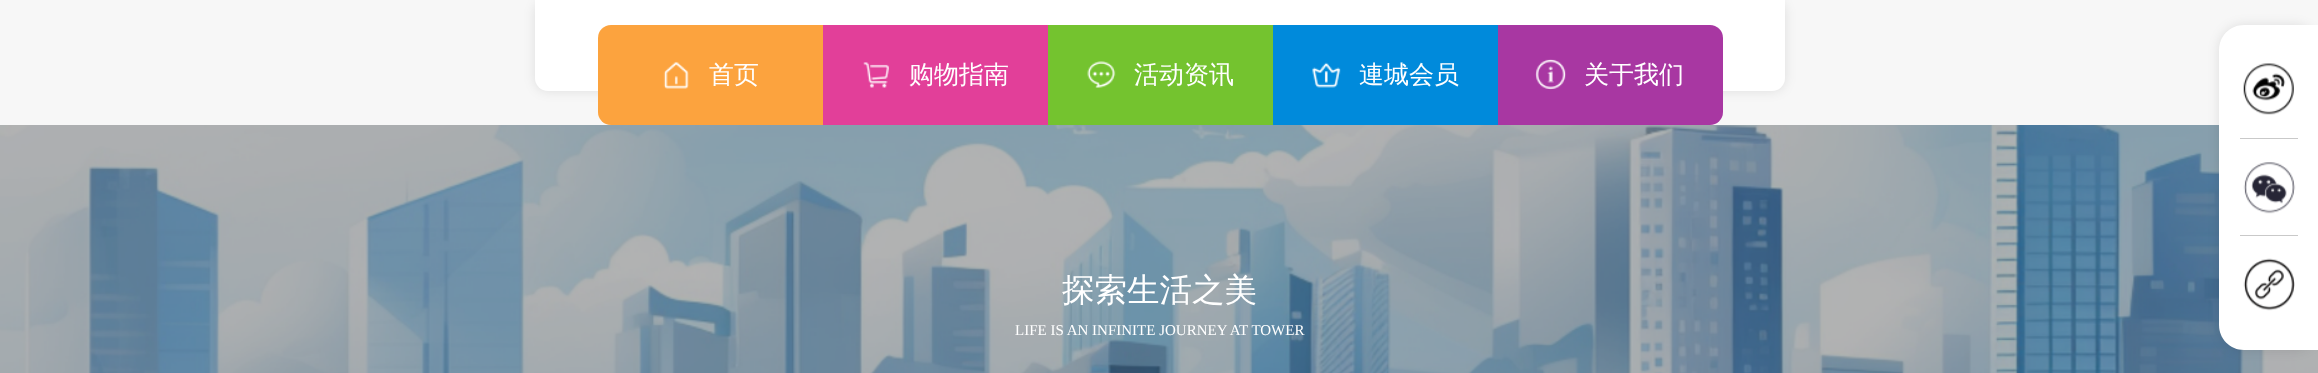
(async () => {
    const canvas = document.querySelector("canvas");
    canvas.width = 2318;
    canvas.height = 373;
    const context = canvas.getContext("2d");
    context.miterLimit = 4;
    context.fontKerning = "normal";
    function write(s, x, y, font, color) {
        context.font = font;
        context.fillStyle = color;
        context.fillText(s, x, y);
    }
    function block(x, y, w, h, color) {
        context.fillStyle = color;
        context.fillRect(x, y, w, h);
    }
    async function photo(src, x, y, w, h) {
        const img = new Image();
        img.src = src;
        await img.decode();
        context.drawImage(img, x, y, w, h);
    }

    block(0, 0, 2318, 373, "rgb(247, 247, 247)");
    context.fillStyle = "rgba(0, 0, 0, 0.1)";
    context.filter = "blur(6px)";
    context.beginPath();
    context.roundRect(535, 0, 1250, 91, 13);
    context.fill();
    context.filter = "none";
    context.fillStyle = "rgb(255, 255, 255)";
    context.beginPath();
    context.roundRect(535, 0, 1250, 91, [0, 0, 13, 13]);
    context.fill();
    context.fillStyle = "rgb(252, 163, 62)";
    context.beginPath();
    context.roundRect(598, 25, 225, 100, [13, 0, 0, 13]);
    context.fill();
    await photo("media/1.png", 663, 61, 26, 28);
    write("首页", 709, 83, "500 25px WenQuanYi Zen Hei", "rgb(255, 255, 255)");
    block(823, 25, 225, 100, "rgb(226, 63, 153)");
    await photo("media/2.png", 863, 62, 26, 26);
    write("购物指南", 909, 83, "500 25px WenQuanYi Zen Hei", "rgb(255, 255, 255)");
    block(1048, 25, 225, 100, "rgb(116, 195, 47)");
    await photo("media/3.png", 1087, 61, 29, 27);
    write("活动资讯", 1134, 83, "500 25px WenQuanYi Zen Hei", "rgb(255, 255, 255)");
    block(1273, 25, 225, 100, "rgb(0, 138, 219)");
    await photo("media/4.png", 1312, 62, 29, 26);
    write("連城会员", 1359, 83, "500 25px WenQuanYi Zen Hei", "rgb(255, 255, 255)");
    context.fillStyle = "rgb(168, 55, 162)";
    context.beginPath();
    context.roundRect(1498, 25, 225, 100, [0, 13, 13, 0]);
    context.fill();
    await photo("media/5.png", 1535, 59, 31, 31);
    write("关于我们", 1584, 83, "500 25px WenQuanYi Zen Hei", "rgb(255, 255, 255)");
    await photo("media/9.png", 0, 125, 2318, 248);
    context.fillStyle = "rgba(0, 0, 0, 0.1)";
    context.filter = "blur(6px)";
    context.beginPath();
    context.roundRect(2219, 25, 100, 325, 25);
    context.fill();
    context.filter = "none";
    context.fillStyle = "rgb(255, 255, 255)";
    context.beginPath();
    context.moveTo(2244, 25);
    context.lineTo(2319, 25);
    context.lineTo(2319, 350);
    context.lineTo(2244, 350);
    context.bezierCurveTo(2230, 350, 2219, 339, 2219, 325);
    context.lineTo(2219, 50);
    context.bezierCurveTo(2219, 36, 2230, 25, 2244, 25);
    context.closePath();
    context.fill();
    await photo("media/6.png", 2243, 63, 51, 52);
    block(2240, 138, 58, 1, "rgb(201, 201, 201)");
    await photo("media/7.png", 2243, 162, 53, 52);
    block(2240, 235, 58, 1, "rgb(201, 201, 201)");
    await photo("media/8.png", 2243, 258, 52, 53);
    write("探索生活之美", 1062, 301, "500 32.5px WenQuanYi Zen Hei", "rgb(255, 255, 255)");
    write("LIFE IS AN INFINITE JOURNEY AT TOWER", 1015, 335, "15px Liberation Serif", "rgb(255, 255, 255)");
})();
